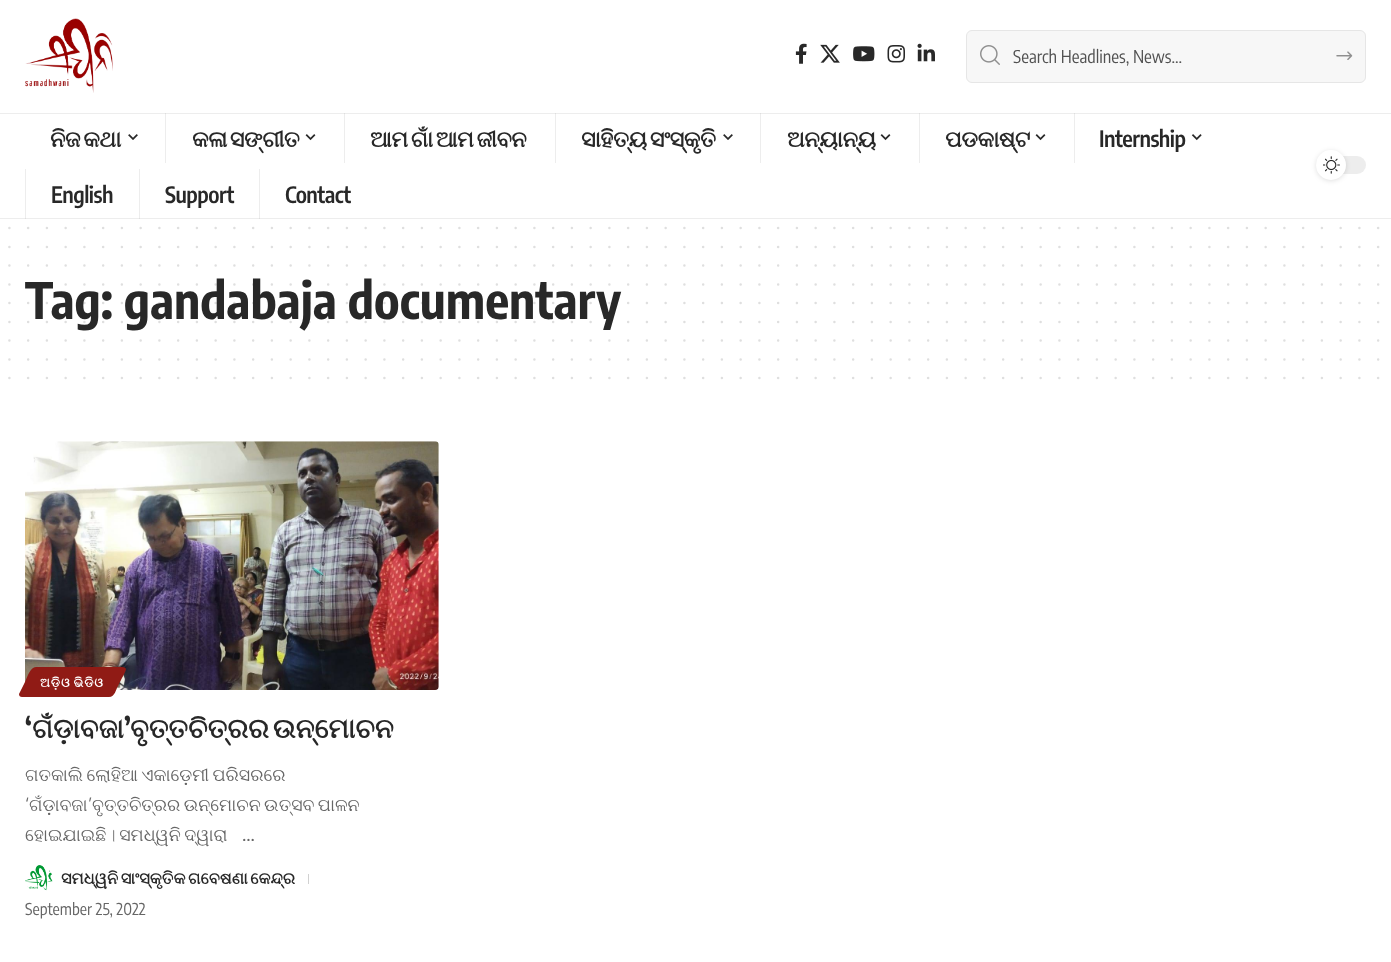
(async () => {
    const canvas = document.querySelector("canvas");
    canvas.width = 1391;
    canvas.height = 962;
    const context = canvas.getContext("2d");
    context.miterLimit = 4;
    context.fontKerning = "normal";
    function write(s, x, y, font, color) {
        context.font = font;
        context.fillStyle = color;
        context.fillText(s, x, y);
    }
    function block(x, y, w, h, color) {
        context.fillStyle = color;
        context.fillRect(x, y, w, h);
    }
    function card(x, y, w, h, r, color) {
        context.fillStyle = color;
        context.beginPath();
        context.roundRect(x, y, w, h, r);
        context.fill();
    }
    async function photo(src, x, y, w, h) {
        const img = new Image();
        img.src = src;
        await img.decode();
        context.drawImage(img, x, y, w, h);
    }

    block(0, 0, 1391, 962, "rgb(255, 255, 255)");
    block(0, 218, 1391, 1, "rgb(237, 237, 237)");
    block(1074, 113, 1, 50, "rgb(237, 237, 237)");
    block(919, 113, 1, 50, "rgb(237, 237, 237)");
    block(760, 113, 1, 50, "rgb(237, 237, 237)");
    block(555, 113, 1, 50, "rgb(237, 237, 237)");
    block(344, 113, 1, 50, "rgb(237, 237, 237)");
    block(165, 113, 1, 50, "rgb(237, 237, 237)");
    await photo("media/1.png", 25, 18, 88, 75);
    await photo("media/2.png", 795, 43, 12, 21);
    await photo("media/3.png", 820, 44, 20, 19);
    await photo("media/4.png", 853, 46, 22, 16);
    await photo("media/5.png", 887, 45, 18, 18);
    await photo("media/6.png", 917, 43, 18, 19);
    context.fillStyle = "rgb(247, 247, 247)";
    context.beginPath();
    context.roundRect(966.5, 30.5, 399, 52, 5.5);
    context.fill();
    context.strokeStyle = "rgb(230, 230, 230)";
    context.stroke();
    await photo("media/7.png", 980, 45, 20, 20);
    write("Search Headlines, News...", 1013, 63, "17.5px Encode Sans Condensed", "rgb(81, 81, 81)");
    await photo("media/8.png", 1336, 51, 17, 9);
    block(0, 113, 1391, 1, "rgb(237, 237, 237)");
    block(1074, 113, 1, 1, "rgb(222, 222, 222)");
    block(919, 113, 1, 1, "rgb(222, 222, 222)");
    block(760, 113, 1, 1, "rgb(222, 222, 222)");
    block(555, 113, 1, 1, "rgb(222, 222, 222)");
    block(344, 113, 1, 1, "rgb(222, 222, 222)");
    block(165, 113, 1, 1, "rgb(222, 222, 222)");
    context.letterSpacing = "-0.5px";
    context.wordSpacing = "-2px";
    write("ନିଜ କଥା", 50, 147, "bold 22.5px FreeSerif", "rgb(40, 40, 40)");
    await photo("media/9.png", 128, 134, 10, 6);
    write("କଳା ସଙ୍ଗୀତ", 192, 147, "bold 22.5px FreeSerif", "rgb(40, 40, 40)");
    await photo("media/10.png", 305, 134, 11, 7);
    write("ଆମ ଗାଁ ଆମ ଜୀବନ", 370, 147, "bold 22.5px FreeSerif", "rgb(40, 40, 40)");
    write("ସାହିତ୍ୟ ସଂସ୍କୃତି", 581, 147, "bold 22.5px FreeSerif", "rgb(40, 40, 40)");
    await photo("media/9.png", 723, 134, 10, 6);
    context.wordSpacing = "0px";
    write("ଅନ୍ୟାନ୍ୟ", 787, 147, "bold 22.5px FreeSerif", "rgb(40, 40, 40)");
    await photo("media/10.png", 880, 134, 11, 7);
    write("ପଡକାଷ୍ଟ", 945, 147, "bold 22.5px FreeSerif", "rgb(40, 40, 40)");
    await photo("media/10.png", 1035, 134, 11, 7);
    write("Internship", 1099, 147, "600 22.5px Encode Sans Condensed", "rgb(40, 40, 40)");
    await photo("media/11.png", 1191, 134, 11, 7);
    block(25, 169, 1, 50, "rgb(237, 237, 237)");
    block(25, 218, 1, 1, "rgb(222, 222, 222)");
    write("English", 51, 203, "600 22.5px Encode Sans Condensed", "rgb(40, 40, 40)");
    block(139, 169, 1, 50, "rgb(237, 237, 237)");
    block(139, 218, 1, 1, "rgb(222, 222, 222)");
    write("Support", 165, 203, "600 22.5px Encode Sans Condensed", "rgb(40, 40, 40)");
    block(259, 169, 1, 50, "rgb(237, 237, 237)");
    block(259, 218, 1, 1, "rgb(222, 222, 222)");
    write("Contact", 285, 203, "600 22.5px Encode Sans Condensed", "rgb(40, 40, 40)");
    card(1316, 156, 50, 18, 9, "rgb(237, 237, 237)");
    context.fillStyle = "rgba(0, 0, 0, 0.12)";
    context.filter = "blur(2.5px)";
    context.beginPath();
    context.roundRect(1316, 151, 30, 30, 15);
    context.fill();
    context.filter = "none";
    context.fillStyle = "rgb(255, 255, 255)";
    context.beginPath();
    context.arc(1331, 165, 15, 0, Math.PI * 2);
    context.fill();
    await photo("media/12.png", 1323, 156, 17, 18);
    context.beginPath();
    context.moveTo(9.4, 228.1);
    context.lineTo(1378.4, 228.1);
    context.strokeStyle = "rgb(223, 223, 223)";
    context.lineWidth = 2.5;
    context.lineCap = "round";
    context.setLineDash([0, 18.75]);
    context.stroke();
    context.beginPath();
    context.moveTo(9.4, 246.9);
    context.lineTo(1378.4, 246.9);
    context.stroke();
    context.beginPath();
    context.moveTo(9.4, 265.6);
    context.lineTo(1378.4, 265.6);
    context.stroke();
    context.letterSpacing = "0px";
    write("Tag: gandabaja documentary", 25, 319, "bold 50px Encode Sans Condensed", "rgb(40, 40, 40)");
    context.beginPath();
    context.moveTo(9.4, 284.4);
    context.lineTo(1378.4, 284.4);
    context.strokeStyle = "rgba(40, 40, 40, 0.15)";
    context.stroke();
    context.beginPath();
    context.moveTo(9.4, 303.1);
    context.lineTo(1378.4, 303.1);
    context.stroke();
    context.beginPath();
    context.moveTo(9.4, 321.9);
    context.lineTo(1378.4, 321.9);
    context.stroke();
    context.beginPath();
    context.moveTo(9.4, 340.6);
    context.lineTo(1378.4, 340.6);
    context.strokeStyle = "rgb(223, 223, 223)";
    context.stroke();
    context.beginPath();
    context.moveTo(9.4, 359.4);
    context.lineTo(1378.4, 359.4);
    context.stroke();
    context.beginPath();
    context.moveTo(9.4, 378.1);
    context.lineTo(1378.4, 378.1);
    context.stroke();
    await photo("media/13.png", 25, 441, 414, 249);
    context.fillStyle = "rgb(144, 27, 21)";
    context.beginPath();
    context.moveTo(36, 667);
    context.lineTo(109, 667);
    context.bezierCurveTo(132, 667, 128, 665, 118, 686);
    context.bezierCurveTo(116, 689, 115, 697, 109, 697);
    context.lineTo(22, 697);
    context.bezierCurveTo(20, 697, 19, 696, 19, 694);
    context.lineTo(25, 682);
    context.bezierCurveTo(27, 678, 30, 667, 36, 667);
    context.closePath();
    context.fill();
    context.letterSpacing = "0.9px";
    context.wordSpacing = "-1px";
    write("ଅଡ଼ିଓ ଭିଡିଓ", 40, 687, "bold 12.5px FreeSerif", "rgb(255, 255, 255)");
    context.letterSpacing = "0px";
    context.wordSpacing = "0px";
    write("‘", 25, 738, "bold 27.5px Encode Sans Condensed", "rgb(40, 40, 40)");
    write("ଗଁଡ଼ାବଜା", 32, 738, "bold 27.5px FreeSerif", "rgb(40, 40, 40)");
    write("’", 124, 738, "bold 27.5px Encode Sans Condensed", "rgb(40, 40, 40)");
    context.wordSpacing = "-3px";
    write("ବୃତ୍ତଚିତ୍ରର ଉନ୍ମୋଚନ", 130, 738, "bold 27.5px FreeSerif", "rgb(40, 40, 40)");
    context.wordSpacing = "-1px";
    write("ଗତକାଲି ଲୋହିଆ ଏକାଡ଼େମୀ ପରିସରରେ", 25, 781, "17.5px FreeSerif", "rgb(102, 102, 102)");
    context.wordSpacing = "0px";
    write("‘", 25, 811, "17.5px Oxygen", "rgb(102, 102, 102)");
    write("ଗଁଡ଼ାବଜା", 29, 811, "17.5px FreeSerif", "rgb(102, 102, 102)");
    write("’", 88, 811, "17.5px Oxygen", "rgb(102, 102, 102)");
    context.wordSpacing = "-1px";
    write("ବୃତ୍ତଚିତ୍ରର ଉନ୍ମୋଚନ ଉତ୍ସବ ପାଳନ", 92, 811, "17.5px FreeSerif", "rgb(102, 102, 102)");
    write("ହୋଇଯାଇଛି । ସମଧ୍ୱନି ଦ୍ୱାରା", 25, 841, "17.5px FreeSerif", "rgb(102, 102, 102)");
    context.wordSpacing = "0px";
    write("…", 242, 841, "17.5px Oxygen", "rgb(102, 102, 102)");
    await photo("media/14.png", 25, 865, 28, 26);
    context.wordSpacing = "-1.5px";
    write("ସମଧ୍ୱନି ସାଂସ୍କୃତିକ ଗବେଷଣା କେନ୍ଦ୍ର", 61, 884, "bold 16.25px FreeSerif", "rgb(40, 40, 40)");
    block(308, 874, 1, 10, "rgb(209, 209, 209)");
    context.wordSpacing = "0px";
    write("September 25, 2022", 25, 915, "16.25px Encode Sans Condensed", "rgb(102, 102, 102)");
})();
